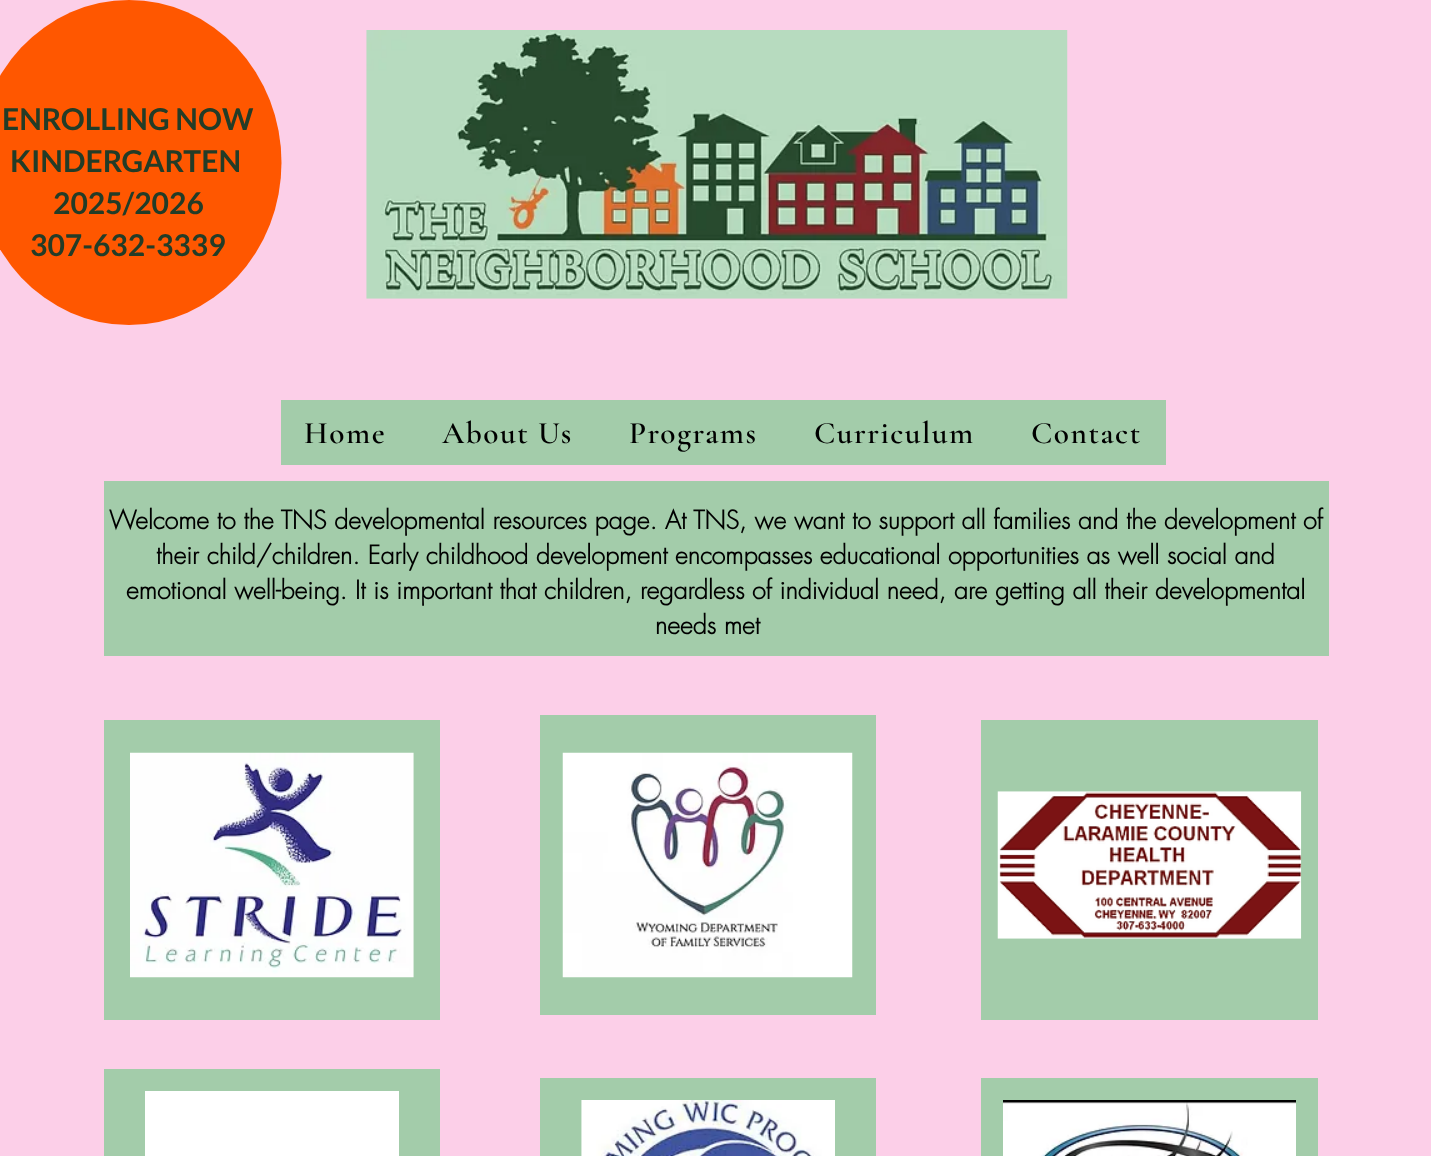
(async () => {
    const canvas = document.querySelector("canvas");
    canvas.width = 1431;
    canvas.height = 1156;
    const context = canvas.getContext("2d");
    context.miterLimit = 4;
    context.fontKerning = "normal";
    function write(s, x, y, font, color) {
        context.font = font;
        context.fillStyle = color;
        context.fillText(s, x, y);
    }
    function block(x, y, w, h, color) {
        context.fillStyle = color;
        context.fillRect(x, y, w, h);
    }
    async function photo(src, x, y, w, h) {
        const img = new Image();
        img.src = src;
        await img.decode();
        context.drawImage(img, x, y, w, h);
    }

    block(0, 0, 1431, 1156, "rgb(252, 207, 232)");
    context.fillStyle = "rgb(255, 87, 0)";
    context.beginPath();
    context.ellipse(129, 162.5, 152.5, 162.5, 0, 0, Math.PI * 2);
    context.fill();
    write("ENROLLING NOW", 2, 130, "bold 30px Lato", "rgb(35, 60, 39)");
    write("KINDERGARTEN", 10, 172, "bold 30px Lato", "rgb(35, 60, 39)");
    write("2025/2026", 53, 214, "bold 30px Lato", "rgb(35, 60, 39)");
    write("307-632-3339", 30, 256, "bold 30px Lato", "rgb(35, 60, 39)");
    await photo("media/1.png", 366, 30, 702, 269);
    block(281, 400, 885, 65, "rgb(163, 204, 170)");
    context.letterSpacing = "1.5px";
    write("Home", 304, 443, "600 31.25px Cormorant Garamond", "rgb(0, 0, 0)");
    write("About Us", 442, 443, "600 31.25px Cormorant Garamond", "rgb(0, 0, 0)");
    write("Programs", 629, 443, "600 31.25px Cormorant Garamond", "rgb(0, 0, 0)");
    write("Curriculum", 814, 443, "600 31.25px Cormorant Garamond", "rgb(0, 0, 0)");
    write("Contact", 1031, 443, "600 31.25px Cormorant Garamond", "rgb(0, 0, 0)");
    block(104, 481, 1225, 175, "rgb(163, 204, 170)");
    context.letterSpacing = "0px";
    write("Welcome to the TNS developmental resources page. At TNS, we want to support all families and the development of", 109, 529, "bold 25px futura", "rgb(0, 0, 0)");
    write("their child/children. Early childhood development encompasses educational opportunities as well social and", 156, 564, "bold 25px futura", "rgb(0, 0, 0)");
    write("emotional well-being. It is important that children, regardless of individual need, are getting all their developmental", 126, 599, "bold 25px futura", "rgb(0, 0, 0)");
    write("needs met", 655, 634, "bold 25px futura", "rgb(0, 0, 0)");
    block(104, 720, 336, 300, "rgb(163, 204, 170)");
    await photo("media/2.png", 130, 752, 284, 226);
    block(540, 715, 336, 300, "rgb(163, 204, 170)");
    await photo("media/3.png", 562, 752, 291, 226);
    block(981, 720, 337, 300, "rgb(163, 204, 170)");
    await photo("media/4.png", 997, 791, 305, 148);
    block(104, 1069, 336, 87, "rgb(163, 204, 170)");
    block(145, 1091, 254, 65, "rgb(255, 255, 255)");
    block(540, 1078, 336, 78, "rgb(163, 204, 170)");
    await photo("media/5.png", 581, 1100, 254, 56);
    block(981, 1078, 337, 78, "rgb(163, 204, 170)");
    await photo("media/6.png", 1003, 1100, 293, 56);
})();
